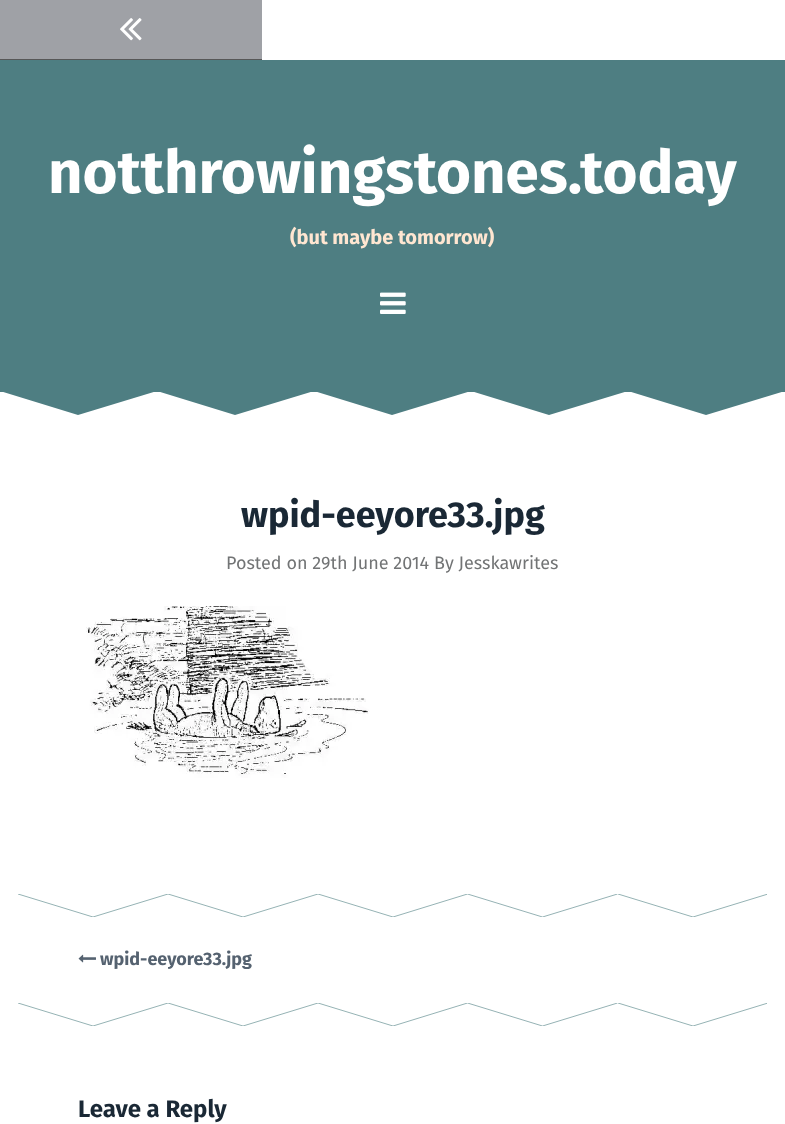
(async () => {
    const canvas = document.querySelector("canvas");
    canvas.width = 785;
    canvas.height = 1124;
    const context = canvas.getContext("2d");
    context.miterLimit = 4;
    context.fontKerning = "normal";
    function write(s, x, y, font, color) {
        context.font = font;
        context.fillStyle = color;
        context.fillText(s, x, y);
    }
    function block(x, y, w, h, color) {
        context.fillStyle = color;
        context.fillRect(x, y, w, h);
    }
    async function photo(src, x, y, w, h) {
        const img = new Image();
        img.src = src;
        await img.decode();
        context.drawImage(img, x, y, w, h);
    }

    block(0, 0, 785, 1124, "rgb(255, 255, 255)");
    block(0, 0, 262, 59, "rgb(159, 161, 166)");
    block(0, 59, 262, 1, "rgb(87, 87, 87)");
    await photo("media/1.png", 120, 18, 22, 23);
    block(0, 60, 785, 332, "rgb(78, 126, 130)");
    write("notthrowingstones.today", 48, 193, "bold 60px Fira Sans", "rgb(255, 255, 255)");
    write("(but maybe tomorrow)", 290, 244, "bold 20px Fira Sans", "rgb(255, 230, 209)");
    await photo("media/2.png", 380, 292, 26, 22);
    context.fillStyle = "rgb(78, 126, 130)";
    context.beginPath();
    context.moveTo(0, 391);
    context.lineTo(78, 415);
    context.lineTo(157, 391);
    context.fill();
    context.beginPath();
    context.moveTo(157, 391);
    context.lineTo(235, 415);
    context.lineTo(314, 391);
    context.fill();
    context.beginPath();
    context.moveTo(314, 391);
    context.lineTo(392, 415);
    context.lineTo(471, 391);
    context.fill();
    context.beginPath();
    context.moveTo(471, 391);
    context.lineTo(549, 415);
    context.lineTo(628, 391);
    context.fill();
    context.beginPath();
    context.moveTo(628, 391);
    context.lineTo(706, 415);
    context.lineTo(785, 391);
    context.fill();
    write("wpid-eeyore33.jpg", 241, 527, "bold 36px Fira Sans", "rgb(26, 40, 53)");
    write("Posted on 29th June 2014 By Jesskawrites", 226, 569, "18px Fira Sans", "rgb(114, 116, 117)");
    await photo("media/3.png", 86, 606, 284, 172);
    context.save();
    context.beginPath();
    context.rect(18, 894, 749, 23);
    context.clip();
    context.beginPath();
    context.moveTo(18, 894);
    context.lineTo(93, 917);
    context.lineTo(168, 894);
    context.strokeStyle = "rgb(78, 126, 130)";
    context.lineWidth = 0.6;
    context.stroke();
    context.beginPath();
    context.moveTo(168, 894);
    context.lineTo(243, 917);
    context.lineTo(318, 894);
    context.stroke();
    context.beginPath();
    context.moveTo(318, 894);
    context.lineTo(393, 917);
    context.lineTo(467.5, 894);
    context.stroke();
    context.beginPath();
    context.moveTo(467.5, 894);
    context.lineTo(542.5, 917);
    context.lineTo(617.5, 894);
    context.stroke();
    context.beginPath();
    context.moveTo(618, 894);
    context.lineTo(693, 917);
    context.lineTo(768, 894);
    context.stroke();
    context.restore();
    await photo("media/4.png", 78, 954, 18, 9);
    write("wpid-eeyore33.jpg", 100, 965, "bold 18px Fira Sans", "rgb(85, 98, 112)");
    context.save();
    context.beginPath();
    context.rect(18, 1003, 749, 23);
    context.clip();
    context.beginPath();
    context.moveTo(18, 1003);
    context.lineTo(93, 1026);
    context.lineTo(168, 1003);
    context.strokeStyle = "rgb(78, 126, 130)";
    context.lineWidth = 0.6;
    context.stroke();
    context.beginPath();
    context.moveTo(168, 1003);
    context.lineTo(243, 1026);
    context.lineTo(318, 1003);
    context.stroke();
    context.beginPath();
    context.moveTo(318, 1003);
    context.lineTo(393, 1026);
    context.lineTo(467.5, 1003);
    context.stroke();
    context.beginPath();
    context.moveTo(467.5, 1003);
    context.lineTo(542.5, 1026);
    context.lineTo(617.5, 1003);
    context.stroke();
    context.beginPath();
    context.moveTo(618, 1003);
    context.lineTo(693, 1026);
    context.lineTo(768, 1003);
    context.stroke();
    context.restore();
    write("Leave a Reply", 78, 1117, "bold 24px Fira Sans", "rgb(26, 40, 53)");
})();
